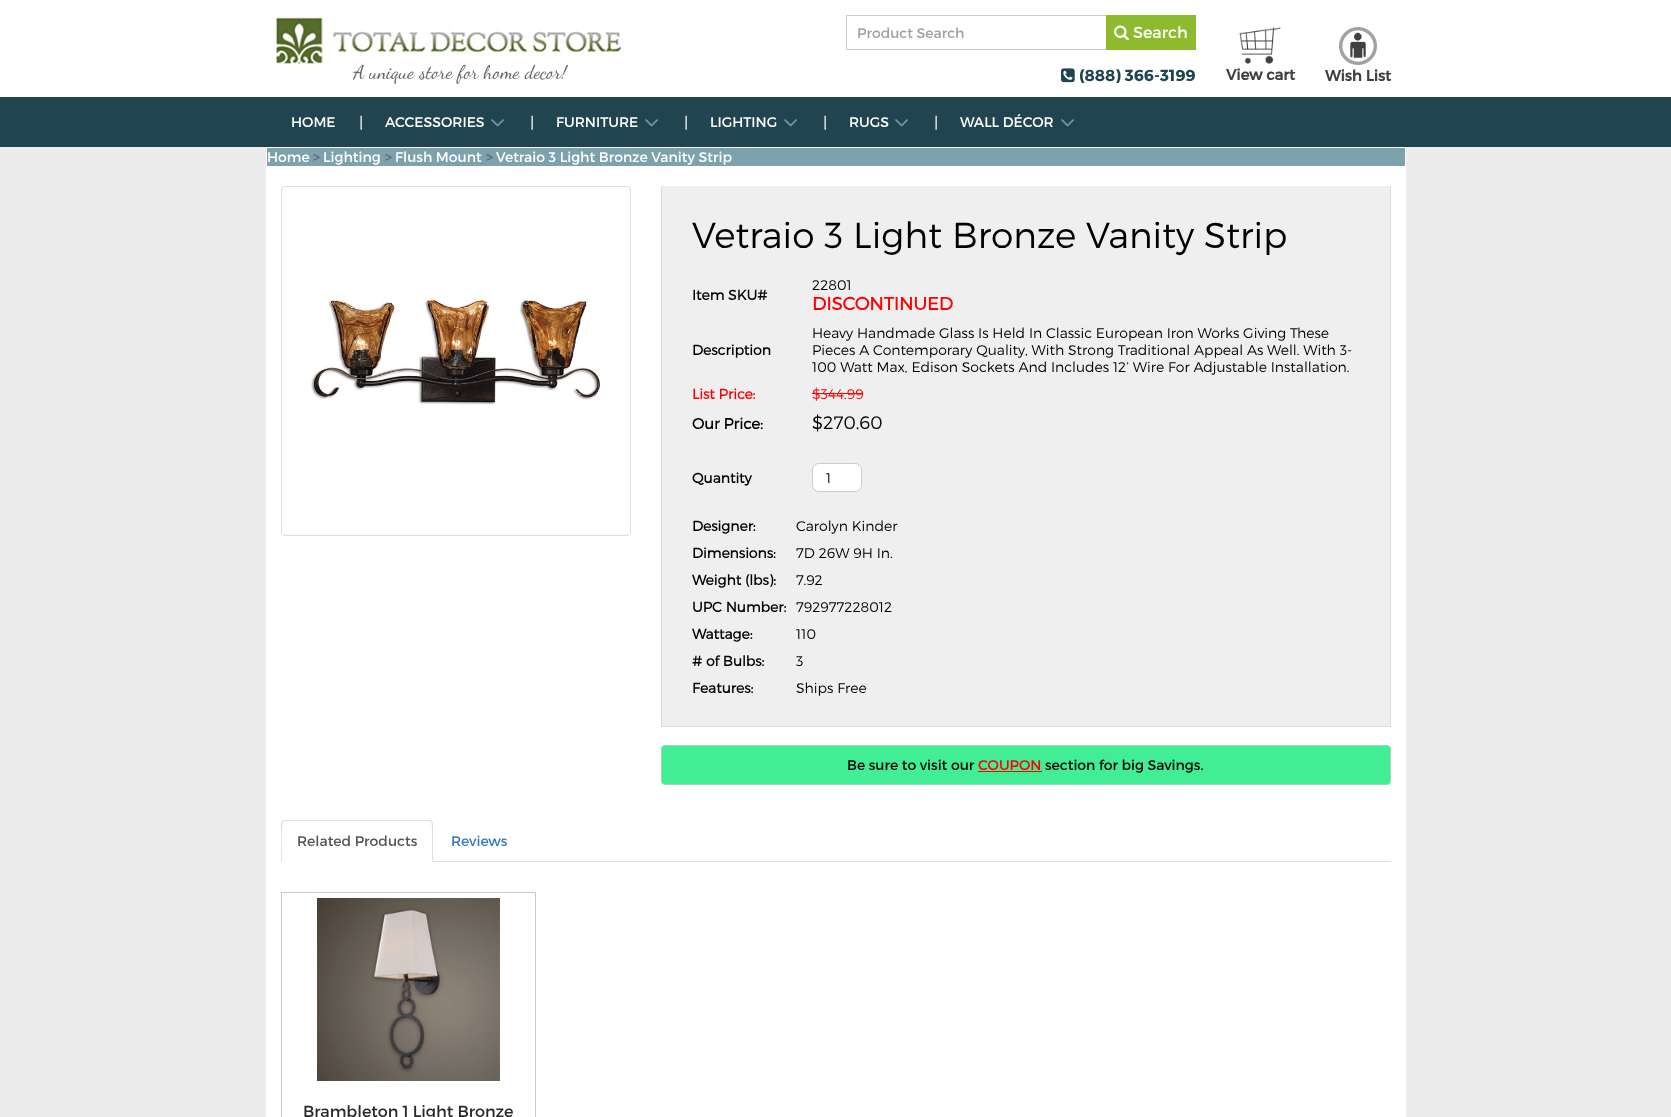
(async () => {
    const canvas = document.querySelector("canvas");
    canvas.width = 1671;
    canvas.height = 1117;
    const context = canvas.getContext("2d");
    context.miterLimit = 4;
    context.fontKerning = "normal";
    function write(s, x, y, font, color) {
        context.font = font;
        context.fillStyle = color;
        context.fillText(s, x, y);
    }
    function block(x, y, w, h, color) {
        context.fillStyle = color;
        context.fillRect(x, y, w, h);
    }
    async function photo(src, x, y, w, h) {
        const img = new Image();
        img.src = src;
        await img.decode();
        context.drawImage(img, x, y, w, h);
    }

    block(0, 0, 1671, 1117, "rgb(236, 236, 236)");
    block(0, 0, 1671, 97, "rgb(255, 255, 255)");
    await photo("media/1.png", 275, 17, 347, 67);
    block(846, 15, 263, 1, "rgb(204, 204, 204)");
    block(846, 49, 263, 1, "rgb(204, 204, 204)");
    block(846, 15, 1, 35, "rgb(204, 204, 204)");
    write("Product Search", 857, 38, "14px Montserrat", "rgb(161, 161, 161)");
    block(1106, 15, 90, 35, "rgb(142, 187, 45)");
    await photo("media/2.png", 1114, 25, 15, 16);
    write("Search", 1133, 38, "16px Montserrat", "rgb(255, 255, 255)");
    await photo("media/3.png", 1061, 68, 14, 15);
    write("(888) 366-3199", 1079, 81, "bold 16px Montserrat", "rgb(33, 68, 81)");
    await photo("media/4.png", 1239, 27, 42, 37);
    write("View cart", 1226, 80, "bold 15px 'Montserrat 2'", "rgb(64, 64, 64)");
    await photo("media/5.png", 1339, 27, 38, 38);
    write("Wish List", 1325, 81, "bold 15px 'Montserrat 2'", "rgb(64, 64, 64)");
    block(0, 97, 1671, 50, "rgb(33, 68, 81)");
    write("HOME", 291, 127, "14px Montserrat", "rgb(255, 255, 255)");
    await photo("media/6.png", 360, 115, 2, 15);
    write("ACCESSORIES", 385, 127, "14px Montserrat", "rgb(255, 255, 255)");
    await photo("media/7.png", 491, 119, 13, 8);
    await photo("media/6.png", 531, 115, 2, 15);
    write("FURNITURE", 556, 127, "14px Montserrat", "rgb(255, 255, 255)");
    await photo("media/7.png", 645, 119, 13, 8);
    await photo("media/6.png", 685, 115, 2, 15);
    write("LIGHTING", 710, 127, "14px Montserrat", "rgb(255, 255, 255)");
    await photo("media/7.png", 784, 119, 13, 8);
    await photo("media/6.png", 824, 115, 2, 15);
    write("RUGS", 849, 127, "14px Montserrat", "rgb(255, 255, 255)");
    await photo("media/7.png", 895, 119, 13, 8);
    await photo("media/6.png", 935, 115, 2, 15);
    write("WALL DÉCOR", 960, 127, "14px Montserrat", "rgb(255, 255, 255)");
    await photo("media/7.png", 1061, 119, 13, 8);
    block(266, 167, 1140, 950, "rgb(255, 255, 255)");
    context.fillStyle = "rgb(126, 161, 174)";
    context.beginPath();
    context.rect(266.5, 147.5, 1139, 19);
    context.fill();
    context.strokeStyle = "rgb(255, 255, 255)";
    context.stroke();
    write("Home", 267, 162, "14px Montserrat", "rgb(255, 255, 255)");
    write(">", 313, 162, "14px Montserrat", "rgb(99, 97, 97)");
    write("Lighting", 323, 162, "14px Montserrat", "rgb(255, 255, 255)");
    write(">", 385, 162, "14px Montserrat", "rgb(99, 97, 97)");
    write("Flush Mount", 395, 162, "14px Montserrat", "rgb(255, 255, 255)");
    write(">", 486, 162, "14px Montserrat", "rgb(99, 97, 97)");
    write("Vetraio 3 Light Bronze Vanity Strip", 496, 162, "14px Montserrat", "rgb(255, 255, 255)");
    context.beginPath();
    context.roundRect(281.5, 186.5, 349, 349, 3.5);
    context.strokeStyle = "rgb(221, 221, 221)";
    context.stroke();
    await photo("media/8.png", 311, 299, 289, 106);
    block(662, 186, 728, 540, "rgb(239, 239, 240)");
    block(1390, 186, 1, 541, "rgb(221, 221, 221)");
    block(661, 726, 730, 1, "rgb(221, 221, 221)");
    block(661, 186, 1, 541, "rgb(221, 221, 221)");
    write("Vetraio 3 Light Bronze Vanity Strip", 692, 248, "300 36px Montserrat", "rgb(0, 0, 0)");
    write("Item SKU#", 692, 300, "bold 14px 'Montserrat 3'", "rgb(0, 0, 0)");
    write("22801", 812, 290, "300 14px Montserrat", "rgb(0, 0, 0)");
    write("DISCONTINUED", 812, 310, "bold 18px 'Montserrat 3'", "rgb(255, 0, 0)");
    write("Description", 692, 355, "bold 14px 'Montserrat 3'", "rgb(0, 0, 0)");
    write("Heavy Handmade Glass Is Held In Classic European Iron Works Giving These", 812, 338, "300 14px Montserrat", "rgb(0, 0, 0)");
    write("Pieces A Contemporary Quality, With Strong Traditional Appeal As Well. With 3-", 812, 355, "300 14px Montserrat", "rgb(0, 0, 0)");
    write("100 Watt Max, Edison Sockets And Includes 12’ Wire For Adjustable Installation.", 812, 372, "300 14px Montserrat", "rgb(0, 0, 0)");
    write("List Price:", 692, 399, "bold 14px 'Montserrat 3'", "rgb(255, 0, 0)");
    write("$344.99", 812, 399, "300 14px Montserrat", "rgb(255, 0, 0)");
    block(812, 393, 51, 1, "rgb(255, 0, 0)");
    write("Our Price:", 692, 429, "bold 15px 'Montserrat 3'", "rgb(0, 0, 0)");
    write("$270.60", 812, 429, "300 18px Montserrat", "rgb(0, 0, 0)");
    write("Quantity", 692, 483, "bold 14px 'Montserrat 3'", "rgb(0, 0, 0)");
    context.fillStyle = "rgb(255, 255, 255)";
    context.beginPath();
    context.roundRect(812.5, 463.5, 49, 28, 6.5);
    context.fill();
    context.strokeStyle = "rgb(204, 204, 204)";
    context.stroke();
    write("1", 826, 483, "300 14px Montserrat", "rgb(0, 0, 0)");
    write("Designer:", 692, 531, "bold 14px 'Montserrat 3'", "rgb(0, 0, 0)");
    write("Carolyn Kinder", 796, 531, "300 14px Montserrat", "rgb(0, 0, 0)");
    write("Dimensions:", 692, 558, "bold 14px 'Montserrat 3'", "rgb(0, 0, 0)");
    write("7D 26W 9H In.", 796, 558, "300 14px Montserrat", "rgb(0, 0, 0)");
    write("Weight (lbs):", 692, 585, "bold 14px 'Montserrat 3'", "rgb(0, 0, 0)");
    write("7.92", 796, 585, "300 14px Montserrat", "rgb(0, 0, 0)");
    write("UPC Number:", 692, 612, "bold 14px 'Montserrat 3'", "rgb(0, 0, 0)");
    write("792977228012", 796, 612, "300 14px Montserrat", "rgb(0, 0, 0)");
    write("Wattage:", 692, 639, "bold 14px 'Montserrat 3'", "rgb(0, 0, 0)");
    write("110", 796, 639, "300 14px Montserrat", "rgb(0, 0, 0)");
    write("# of Bulbs:", 692, 666, "bold 14px 'Montserrat 3'", "rgb(0, 0, 0)");
    write("3", 796, 666, "300 14px Montserrat", "rgb(0, 0, 0)");
    write("Features:", 692, 693, "bold 14px 'Montserrat 3'", "rgb(0, 0, 0)");
    write("Ships Free", 796, 693, "300 14px Montserrat", "rgb(0, 0, 0)");
    context.fillStyle = "rgb(65, 238, 149)";
    context.beginPath();
    context.roundRect(661.5, 745.5, 729, 39, 3.5);
    context.fill();
    context.strokeStyle = "rgb(160, 214, 180)";
    context.stroke();
    write("Be sure to visit our", 847, 770, "14px Montserrat", "rgb(0, 0, 0)");
    write("COUPON", 978, 770, "14px Montserrat", "rgb(255, 0, 0)");
    block(978, 771, 64, 1, "rgb(255, 0, 0)");
    write("section for big Savings.", 1045, 770, "14px Montserrat", "rgb(0, 0, 0)");
    block(433, 861, 958, 1, "rgb(221, 221, 221)");
    context.beginPath();
    context.moveTo(285, 820);
    context.lineTo(282, 821);
    context.lineTo(283, 822);
    context.lineTo(285, 821);
    context.lineTo(429, 821);
    context.lineTo(431, 822);
    context.lineTo(432, 821);
    context.lineTo(429, 820);
    context.closePath();
    context.fill();
    context.beginPath();
    context.moveTo(433, 862);
    context.lineTo(433, 824);
    context.bezierCurveTo(433, 823, 432, 822, 432, 821);
    context.lineTo(431, 822);
    context.bezierCurveTo(433, 824, 432, 856, 432, 861);
    context.closePath();
    context.fill();
    context.beginPath();
    context.moveTo(281, 862);
    context.lineTo(282, 861);
    context.bezierCurveTo(282, 856, 281, 824, 283, 822);
    context.lineTo(282, 821);
    context.lineTo(281, 824);
    context.closePath();
    context.fill();
    write("Related Products", 297, 846, "14px Montserrat", "rgb(85, 85, 85)");
    write("Reviews", 451, 846, "14px Montserrat", "rgb(51, 122, 183)");
    context.strokeStyle = "rgb(201, 201, 201)";
    context.strokeRect(281.5, 892.5, 254, 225);
    await photo("media/9.png", 317, 898, 183, 183);
    write("Brambleton 1 Light Bronze", 303, 1117, "16px Montserrat", "rgb(41, 41, 41)");
})();
